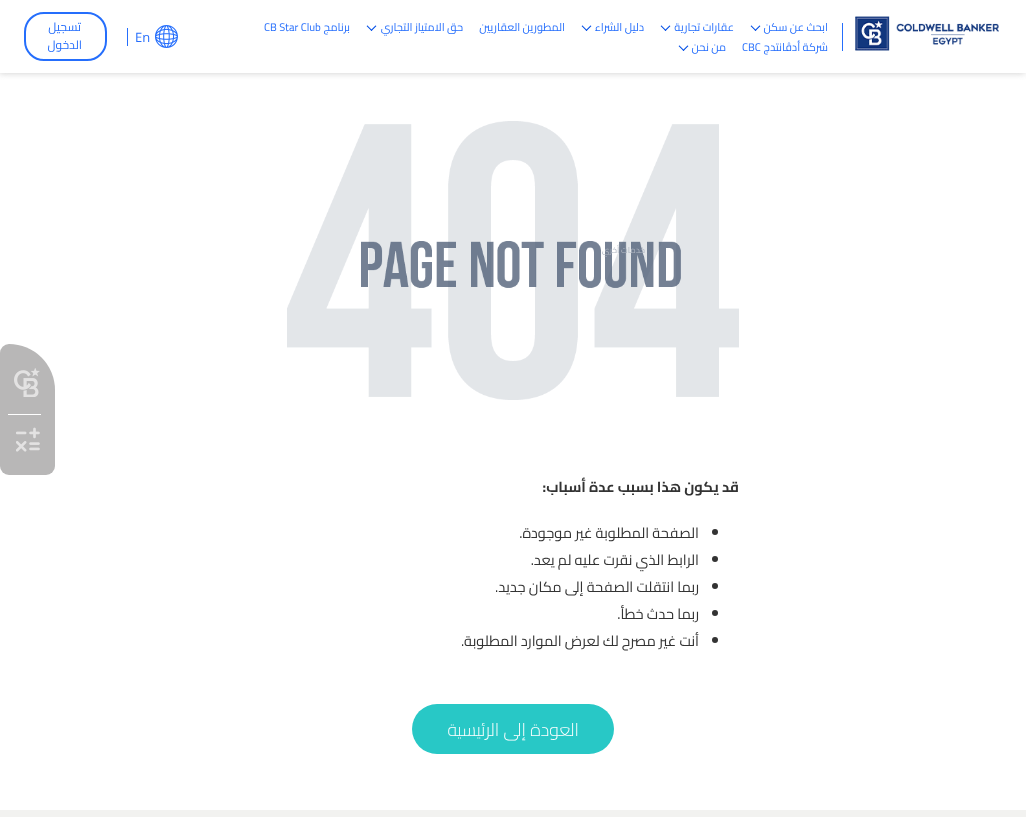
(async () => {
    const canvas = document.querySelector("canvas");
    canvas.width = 1026;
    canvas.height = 817;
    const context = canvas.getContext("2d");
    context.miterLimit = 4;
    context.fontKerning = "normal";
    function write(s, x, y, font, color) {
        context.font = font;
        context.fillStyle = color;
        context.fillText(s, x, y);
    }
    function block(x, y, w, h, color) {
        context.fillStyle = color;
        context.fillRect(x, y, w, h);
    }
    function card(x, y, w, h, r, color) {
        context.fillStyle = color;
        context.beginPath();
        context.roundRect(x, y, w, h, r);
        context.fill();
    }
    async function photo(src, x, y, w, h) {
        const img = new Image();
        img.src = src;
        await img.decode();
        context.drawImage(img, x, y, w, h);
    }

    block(0, 0, 1026, 817, "rgb(255, 255, 255)");
    context.save();
    context.beginPath();
    context.rect(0, 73, 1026, 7);
    context.clip();
    context.fillStyle = "rgb(204, 204, 204)";
    context.filter = "blur(3.5px)";
    context.beginPath();
    context.rect(-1, 0, 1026, 73);
    context.fill();
    context.filter = "none";
    context.restore();
    await photo("media/1.png", 855, 16, 144, 35);
    block(842, 23, 1, 28, "rgb(37, 110, 252)");
    context.direction = "rtl";
    write("دليل الشراء", 644, 31, "11px Cairo", "rgb(37, 110, 252)");
    await photo("media/2.png", 581, 25, 11, 6);
    write("المطورين العقاريين", 565, 31, "11px Cairo", "rgb(37, 110, 252)");
    write("حق الامتياز التجاري", 463, 31, "11px Cairo", "rgb(37, 110, 252)");
    await photo("media/2.png", 366, 25, 11, 6);
    write("برنامج", 350, 31, "11px Cairo", "rgb(37, 110, 252)");
    context.direction = "ltr";
    write("CB Star Club", 264, 31, "11px Cairo", "rgb(37, 110, 252)");
    context.direction = "rtl";
    write("ابحث عن سكن", 828, 31, "11px Cairo", "rgb(37, 110, 252)");
    await photo("media/2.png", 750, 25, 11, 6);
    write("عقارات تجارية", 734, 31, "11px Cairo", "rgb(37, 110, 252)");
    await photo("media/2.png", 660, 25, 11, 6);
    await photo("media/6.png", 287, 121, 452, 279);
    write("خدمات أخري", 645, 253, "8.5px Cairo", "rgb(175, 182, 193)");
    write("شركة أدڤانتدچ", 828, 51, "11px Cairo", "rgb(37, 110, 252)");
    context.direction = "ltr";
    write("CBC", 742, 51, "11px Cairo", "rgb(37, 110, 252)");
    context.direction = "rtl";
    write("من نحن", 726, 51, "11px Cairo", "rgb(37, 110, 252)");
    await photo("media/2.png", 678, 45, 11, 6);
    await photo("media/3.png", 155, 25, 23, 23);
    context.direction = "ltr";
    write("En", 135, 42, "13px Open Sans", "rgb(37, 110, 252)");
    block(127, 28, 1, 18, "rgb(37, 110, 252)");
    context.beginPath();
    context.roundRect(25, 13, 81, 47, 19);
    context.strokeStyle = "rgb(37, 110, 252)";
    context.lineWidth = 2;
    context.stroke();
    context.direction = "rtl";
    write("تسجيل", 81, 31, "12px Cairo", "rgb(37, 110, 252)");
    write("الدخول", 82, 49, "12px Cairo", "rgb(37, 110, 252)");
    context.fillStyle = "rgb(184, 183, 183)";
    context.beginPath();
    context.roundRect(0, 344, 55, 131, [9, 46, 9, 9]);
    context.fill();
    await photo("media/4.png", 14, 368, 26, 29);
    block(8, 414, 33, 1, "rgb(255, 255, 255)");
    await photo("media/5.png", 16, 427, 24, 25);
    write("قد يكون هذا بسبب عدة أسباب:", 739, 492, "bold 14.5px Cairo", "rgb(51, 51, 51)");
    context.beginPath();
    context.arc(715, 532, 3, 0, Math.PI * 2);
    context.fill();
    write("الصفحة المطلوبة غير موجودة.", 699, 538, "14.5px Cairo", "rgb(51, 51, 51)");
    context.beginPath();
    context.arc(715, 559, 3, 0, Math.PI * 2);
    context.fill();
    write("الرابط الذي نقرت عليه لم يعد.", 699, 565, "14.5px Cairo", "rgb(51, 51, 51)");
    context.beginPath();
    context.arc(715, 586, 3, 0, Math.PI * 2);
    context.fill();
    write("ربما انتقلت الصفحة إلى مكان جديد.", 699, 592, "14.5px Cairo", "rgb(51, 51, 51)");
    context.beginPath();
    context.arc(715, 613, 3, 0, Math.PI * 2);
    context.fill();
    write("ربما حدث خطأ.", 699, 619, "14.5px Cairo", "rgb(51, 51, 51)");
    context.beginPath();
    context.arc(715, 640, 3, 0, Math.PI * 2);
    context.fill();
    write("أنت غير مصرح لك لعرض الموارد المطلوبة.", 699, 646, "14.5px Cairo", "rgb(51, 51, 51)");
    card(412, 704, 202, 50, 25, "rgb(40, 200, 198)");
    write("العودة إلى الرئيسية", 579, 736, "300 18px Cairo", "rgb(255, 255, 255)");
    block(0, 810, 1026, 7, "rgb(242, 242, 240)");
})();
